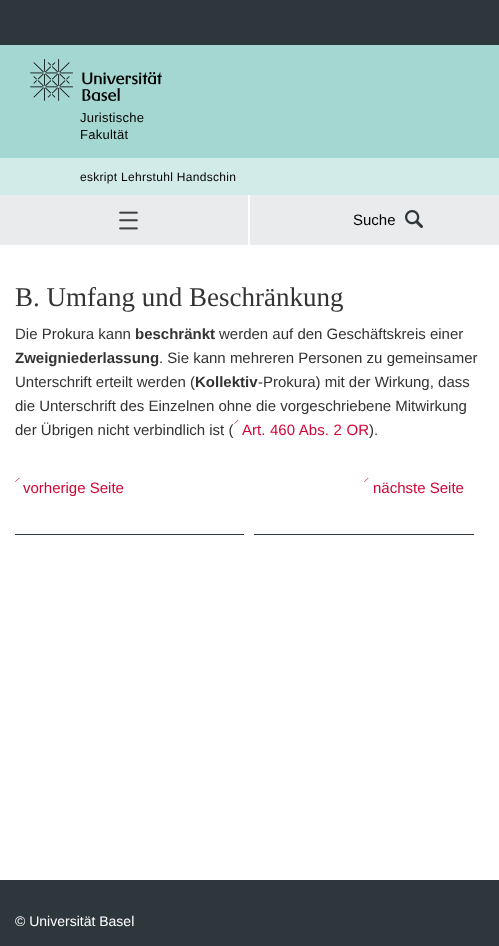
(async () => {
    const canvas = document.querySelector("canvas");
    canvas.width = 499;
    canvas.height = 946;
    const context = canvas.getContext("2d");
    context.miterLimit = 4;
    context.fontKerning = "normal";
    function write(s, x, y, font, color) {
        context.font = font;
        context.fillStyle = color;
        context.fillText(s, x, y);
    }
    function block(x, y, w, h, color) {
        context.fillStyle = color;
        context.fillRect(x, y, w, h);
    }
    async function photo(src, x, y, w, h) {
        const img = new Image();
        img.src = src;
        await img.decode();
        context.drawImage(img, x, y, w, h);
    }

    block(0, 0, 499, 946, "rgb(255, 255, 255)");
    block(0, 0, 499, 45, "rgb(45, 55, 60)");
    block(0, 45, 499, 113, "rgb(165, 215, 210)");
    await photo("media/1.png", 30, 59, 132, 42);
    context.letterSpacing = "0.25px";
    write("Juristische", 80, 122, "13px Liberation Sans", "rgb(0, 0, 0)");
    write("Fakultät", 80, 139, "13px Liberation Sans", "rgb(0, 0, 0)");
    block(0, 158, 499, 37, "rgb(210, 235, 233)");
    context.letterSpacing = "0.3px";
    write("eskript Lehrstuhl Handschin", 80, 181, "12px Liberation Sans", "rgb(0, 0, 0)");
    block(0, 195, 499, 50, "rgb(234, 235, 236)");
    block(248, 195, 2, 52, "rgb(255, 255, 255)");
    await photo("media/2.png", 119, 211, 19, 19);
    context.letterSpacing = "0px";
    write("Suche", 353, 225, "15px Liberation Sans", "rgb(0, 0, 0)");
    await photo("media/3.png", 405, 210, 18, 18);
    write("B. Umfang und Beschränkung", 15, 306, "27px Liberation Serif", "rgb(51, 51, 51)");
    write("Die Prokura kann", 15, 339, "15px Liberation Sans", "rgb(51, 51, 51)");
    write("beschränkt", 135, 339, "bold 15px Liberation Sans", "rgb(51, 51, 51)");
    write("werden auf den Geschäftskreis einer", 219, 339, "15px Liberation Sans", "rgb(51, 51, 51)");
    write("Zweigniederlassung", 15, 363, "bold 15px Liberation Sans", "rgb(51, 51, 51)");
    write(". Sie kann mehreren Personen zu gemeinsamer", 159, 363, "15px Liberation Sans", "rgb(51, 51, 51)");
    write("Unterschrift erteilt werden (", 15, 387, "15px Liberation Sans", "rgb(51, 51, 51)");
    write("Kollektiv", 195, 387, "bold 15px Liberation Sans", "rgb(51, 51, 51)");
    write("-Prokura) mit der Wirkung, dass", 258, 387, "15px Liberation Sans", "rgb(51, 51, 51)");
    write("die Unterschrift des Einzelnen ohne die vorgeschriebene Mitwirkung", 15, 411, "15px Liberation Sans", "rgb(51, 51, 51)");
    write("der Übrigen nicht verbindlich ist (", 15, 435, "15px Liberation Sans", "rgb(51, 51, 51)");
    await photo("media/4.png", 234, 420, 5, 4);
    context.wordSpacing = "0.5px";
    write("Art. 460 Abs. 2 OR", 242, 435, "15px Liberation Sans", "rgb(210, 5, 55)");
    context.wordSpacing = "0px";
    write(").", 369, 435, "15px Liberation Sans", "rgb(51, 51, 51)");
    block(15, 534, 229, 1, "rgb(45, 55, 60)");
    await photo("media/4.png", 15, 478, 5, 4);
    write("vorherige Seite", 23, 493, "15px Liberation Sans", "rgb(210, 5, 55)");
    block(254, 534, 220, 1, "rgb(45, 55, 60)");
    await photo("media/4.png", 364, 478, 5, 4);
    write("nächste Seite", 373, 493, "15px Liberation Sans", "rgb(210, 5, 55)");
    block(0, 880, 499, 66, "rgb(45, 55, 60)");
    write("© Universität Basel", 15, 926, "14px Liberation Sans", "rgb(255, 255, 255)");
})();
